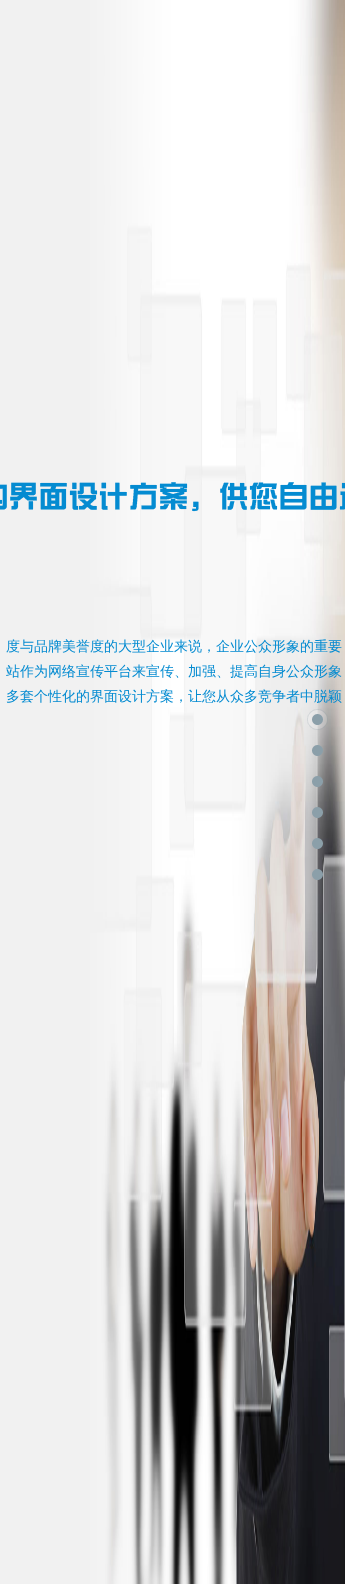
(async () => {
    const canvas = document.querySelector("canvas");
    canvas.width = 345;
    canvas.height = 1584;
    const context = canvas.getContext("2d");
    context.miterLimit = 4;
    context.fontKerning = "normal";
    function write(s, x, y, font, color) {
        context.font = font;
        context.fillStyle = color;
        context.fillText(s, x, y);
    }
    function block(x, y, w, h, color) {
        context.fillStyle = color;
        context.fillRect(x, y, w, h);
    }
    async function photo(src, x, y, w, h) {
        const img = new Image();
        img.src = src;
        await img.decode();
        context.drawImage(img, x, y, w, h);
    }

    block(0, 0, 345, 1584, "rgb(255, 255, 255)");
    await photo("media/1.png", 0, 0, 345, 1584);
    await photo("media/2.png", 0, 482, 345, 30);
    write("度与品牌美誉度的大型企业来说，企业公众形象的重要", 6, 651, "500 14px WenQuanYi Zen Hei", "rgb(4, 139, 209)");
    write("站作为网络宣传平台来宣传、加强、提高自身公众形象", 6, 676, "500 14px WenQuanYi Zen Hei", "rgb(4, 139, 209)");
    write("多套个性化的界面设计方案，让您从众多竞争者中脱颖", 6, 701, "500 14px WenQuanYi Zen Hei", "rgb(4, 139, 209)");
    await photo("media/3.png", 307, 709, 21, 21);
    await photo("media/4.png", 312, 745, 11, 11);
    await photo("media/5.png", 312, 776, 11, 11);
    await photo("media/6.png", 312, 807, 11, 11);
    await photo("media/7.png", 312, 838, 11, 11);
    await photo("media/8.png", 312, 869, 11, 11);
})();
